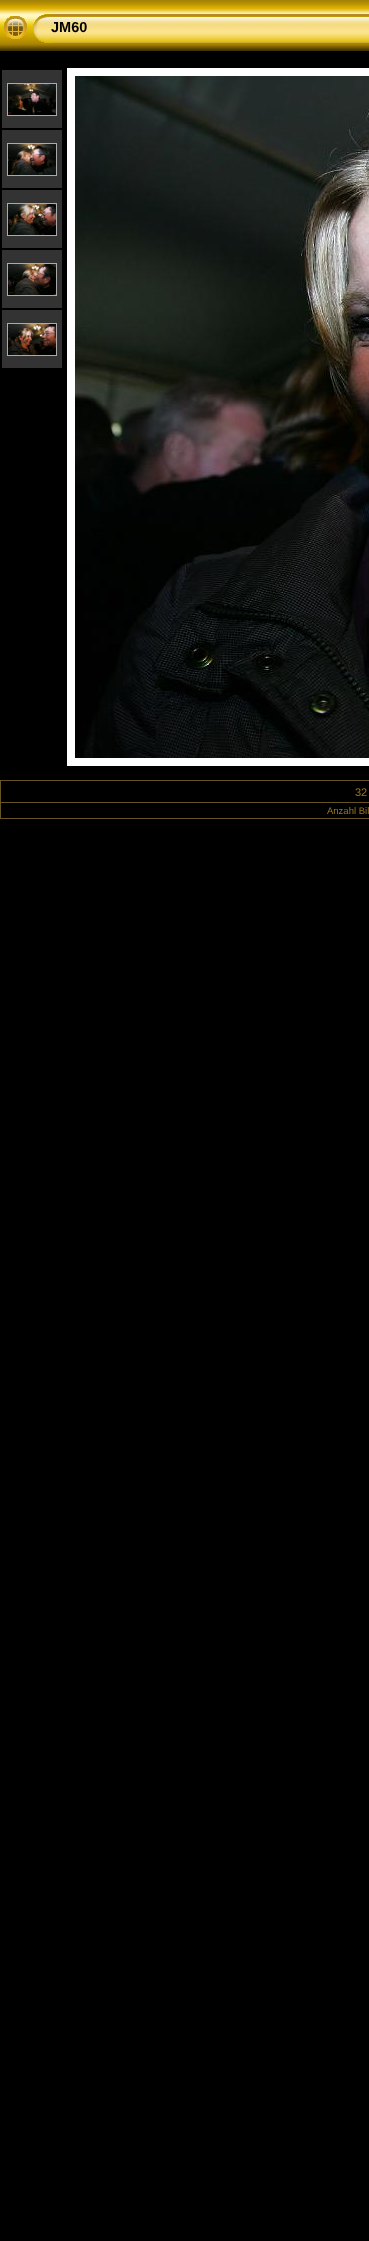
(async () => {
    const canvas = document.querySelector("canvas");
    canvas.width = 369;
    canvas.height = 2241;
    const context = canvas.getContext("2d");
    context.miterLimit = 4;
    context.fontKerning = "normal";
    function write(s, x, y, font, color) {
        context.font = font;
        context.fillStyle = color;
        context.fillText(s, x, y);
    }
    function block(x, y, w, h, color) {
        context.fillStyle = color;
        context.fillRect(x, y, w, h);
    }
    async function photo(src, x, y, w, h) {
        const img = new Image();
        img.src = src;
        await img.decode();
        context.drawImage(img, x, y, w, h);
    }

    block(0, 0, 369, 2241, "rgb(0, 0, 0)");
    await photo("media/1.png", 0, 0, 369, 51);
    await photo("media/2.png", 3, 16, 24, 23);
    await photo("media/3.png", 33, 14, 18, 29);
    await photo("media/4.png", 51, 14, 318, 29);
    write("JM60", 51, 32, "bold 14.5px Liberation Sans", "rgb(0, 0, 0)");
    block(2, 70, 60, 58, "rgb(51, 51, 51)");
    context.strokeStyle = "rgb(170, 170, 170)";
    context.strokeRect(7.5, 83.5, 49, 32);
    await photo("media/5.png", 8, 84, 48, 31);
    block(2, 130, 60, 58, "rgb(51, 51, 51)");
    context.strokeRect(7.5, 143.5, 49, 32);
    await photo("media/6.png", 8, 144, 48, 31);
    block(2, 190, 60, 58, "rgb(51, 51, 51)");
    context.strokeRect(7.5, 203.5, 49, 32);
    await photo("media/7.png", 8, 204, 48, 31);
    block(2, 250, 60, 58, "rgb(51, 51, 51)");
    context.strokeRect(7.5, 263.5, 49, 32);
    await photo("media/8.png", 8, 264, 48, 31);
    block(2, 310, 60, 58, "rgb(51, 51, 51)");
    context.strokeRect(7.5, 323.5, 49, 32);
    await photo("media/9.png", 8, 324, 48, 31);
    context.strokeStyle = "rgb(255, 255, 255)";
    context.lineWidth = 8;
    context.strokeRect(71, 72, 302, 690);
    await photo("media/10.png", 75, 76, 294, 682);
    block(0, 780, 369, 1, "rgb(102, 85, 34)");
    block(0, 818, 369, 1, "rgb(102, 85, 34)");
    block(0, 780, 1, 39, "rgb(102, 85, 34)");
    write("32", 355, 796, "11px Liberation Sans", "rgb(153, 119, 34)");
    block(0, 802, 369, 1, "rgb(102, 85, 34)");
    write("Anzahl Bil", 327, 814, "9.5px Liberation Sans", "rgb(153, 119, 34)");
})();
